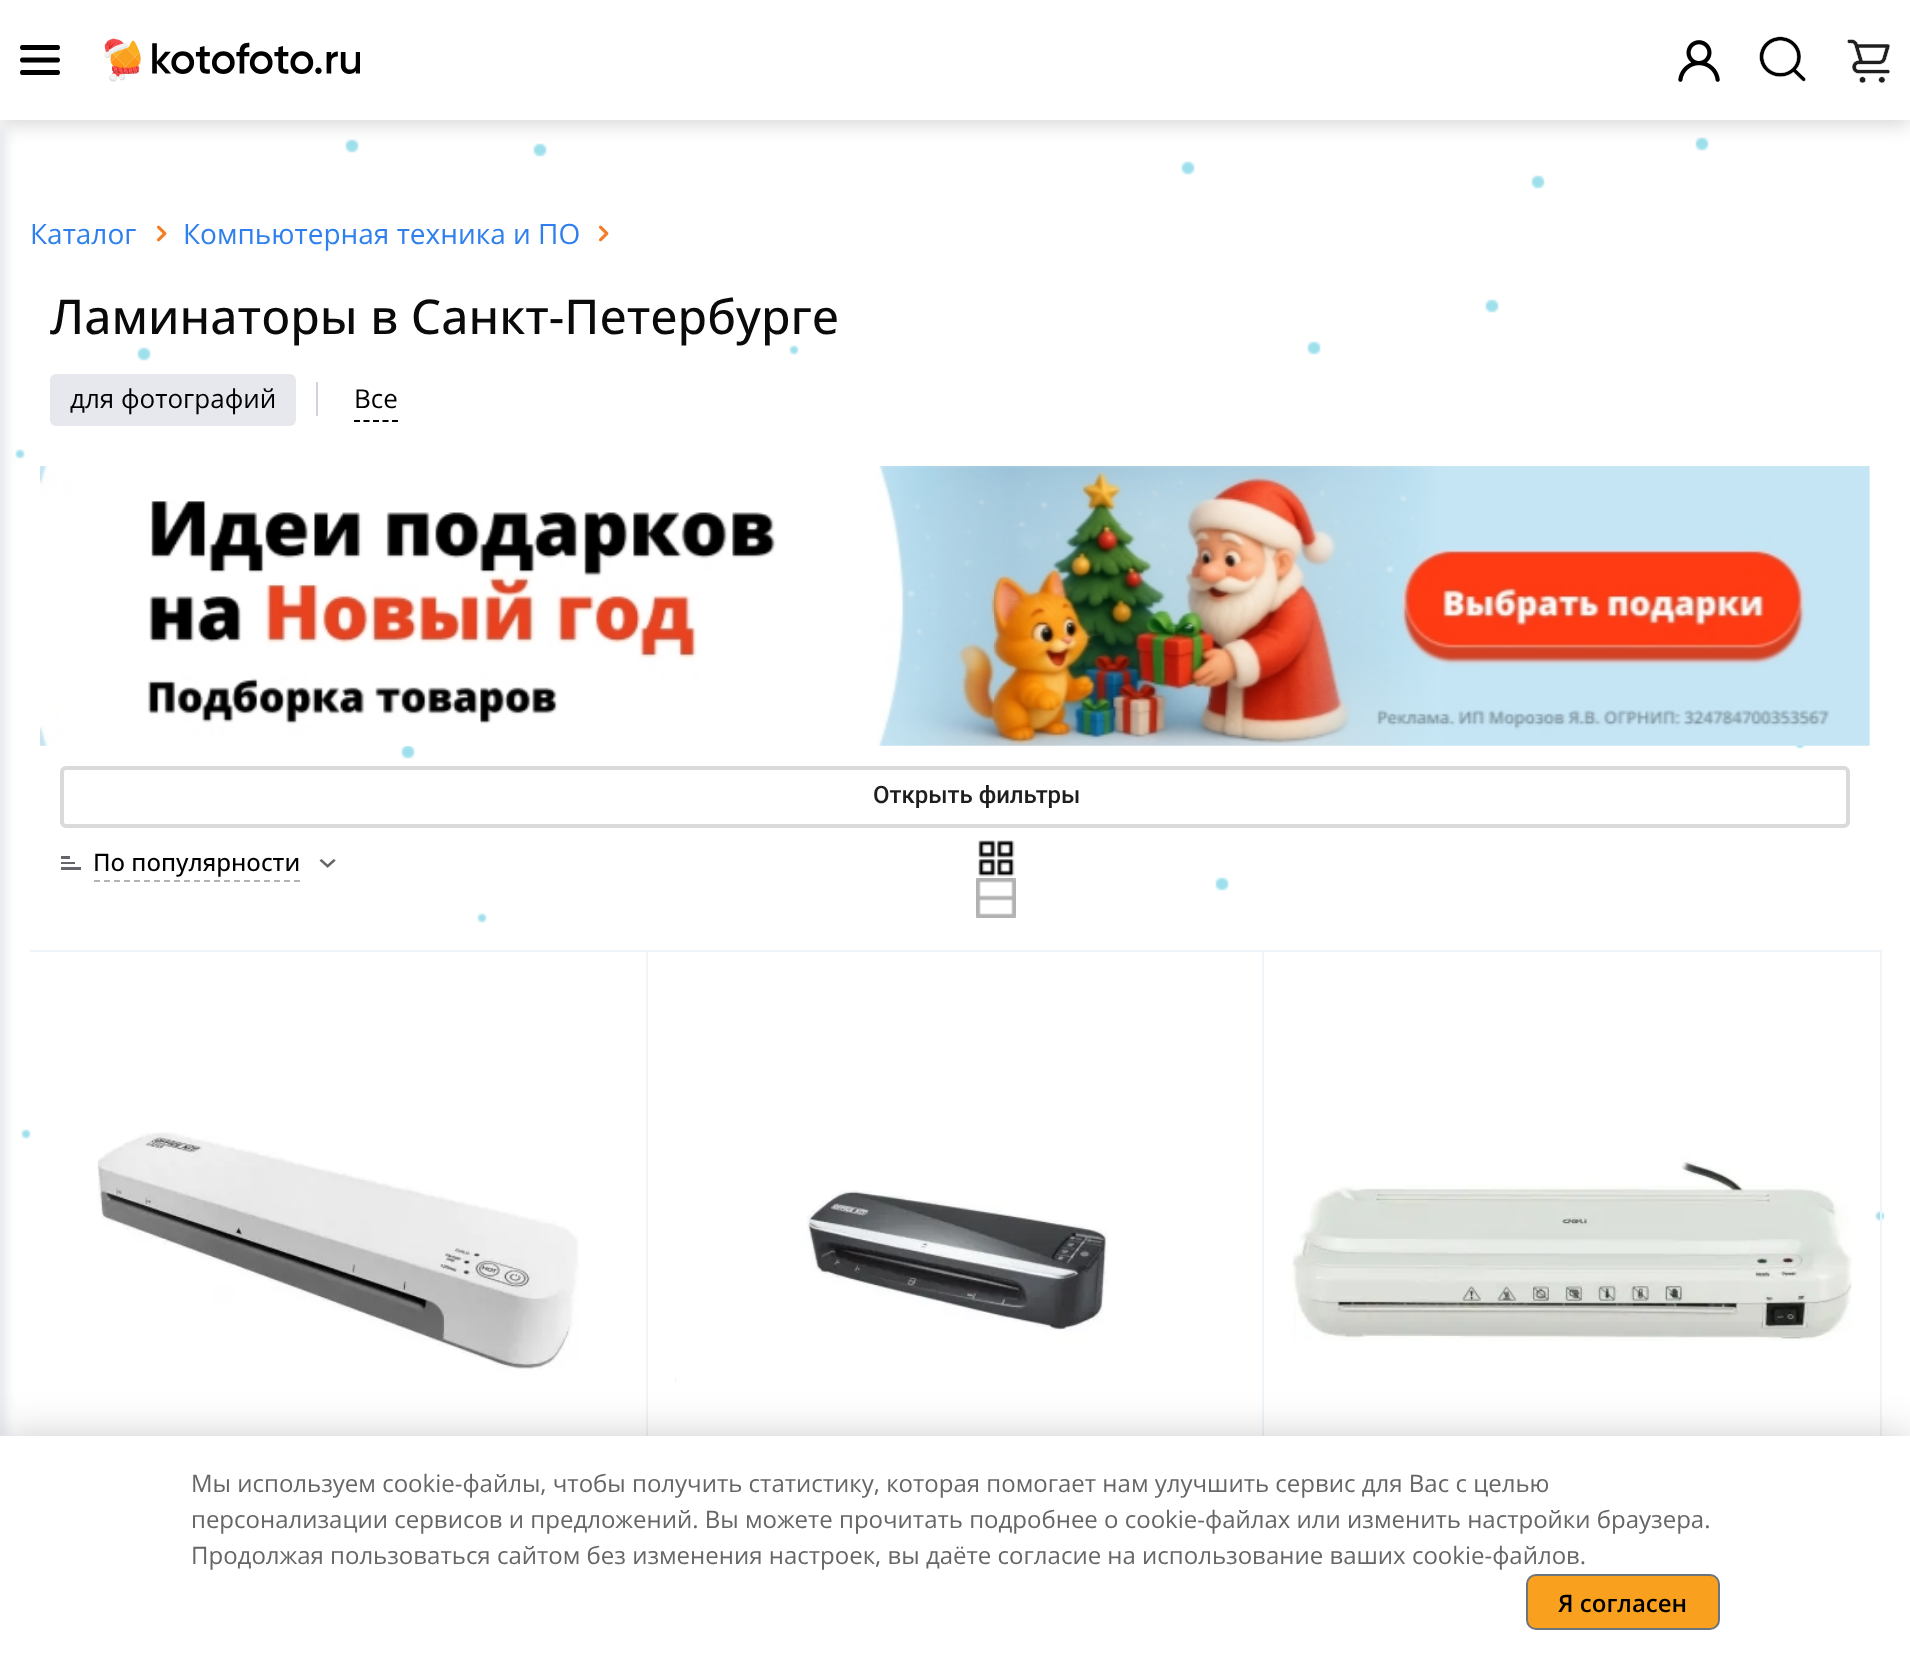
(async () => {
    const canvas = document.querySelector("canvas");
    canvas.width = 1910;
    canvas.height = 1659;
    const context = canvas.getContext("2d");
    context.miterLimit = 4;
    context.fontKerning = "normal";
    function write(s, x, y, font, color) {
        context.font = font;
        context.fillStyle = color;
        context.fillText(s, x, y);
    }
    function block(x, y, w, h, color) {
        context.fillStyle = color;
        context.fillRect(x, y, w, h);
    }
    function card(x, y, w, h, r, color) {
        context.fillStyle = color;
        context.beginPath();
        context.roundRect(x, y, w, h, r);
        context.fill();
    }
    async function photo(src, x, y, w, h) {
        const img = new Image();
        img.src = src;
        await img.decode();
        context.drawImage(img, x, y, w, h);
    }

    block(0, 0, 1910, 1659, "rgb(255, 255, 255)");
    await photo("media/6.png", 15, 137, 1870, 1247);
    context.fillStyle = "rgba(0, 22, 64, 0.1)";
    context.filter = "blur(6px)";
    context.beginPath();
    context.rect(-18, 128, 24, 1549);
    context.fill();
    context.filter = "none";
    context.fillStyle = "rgba(0, 0, 0, 0.17)";
    context.filter = "blur(10px)";
    context.beginPath();
    context.rect(0, 4, 1910, 120);
    context.fill();
    context.filter = "none";
    block(0, 0, 1910, 120, "rgb(255, 255, 255)");
    await photo("media/1.png", 20, 45, 40, 30);
    await photo("media/2.png", 104, 38, 256, 44);
    await photo("media/3.png", 1678, 40, 42, 42);
    await photo("media/4.png", 1759, 36, 47, 46);
    await photo("media/5.png", 1847, 39, 43, 44);
    write("Каталог", 30, 244, "28px Open Sans", "rgb(47, 128, 237)");
    await photo("media/7.png", 157, 225, 10, 17);
    write("Компьютерная техника и ПО", 183, 244, "28px Open Sans", "rgb(47, 128, 237)");
    await photo("media/7.png", 599, 225, 10, 17);
    write("Ламинаторы в Санкт-Петербурге", 50, 334, "500 48px Open Sans", "rgb(10, 10, 10)");
    card(50, 374, 246, 52, 6, "rgb(230, 232, 237)");
    write("для фотографий", 70, 408, "26px Open Sans", "rgb(0, 0, 0)");
    block(316, 382, 2, 34, "rgb(209, 210, 219)");
    context.beginPath();
    context.moveTo(354, 421);
    context.lineTo(398, 421);
    context.strokeStyle = "rgb(0, 0, 0)";
    context.lineWidth = 2;
    context.setLineDash([6, 3.5]);
    context.stroke();
    write("Все", 354, 408, "26px Open Sans", "rgb(0, 0, 0)");
    await photo("media/8.png", 40, 466, 1830, 280);
    context.beginPath();
    context.roundRect(62, 768, 1786, 58, 4);
    context.strokeStyle = "rgb(218, 218, 218)";
    context.lineWidth = 4;
    context.setLineDash([]);
    context.stroke();
    write("Открыть фильтры", 873, 803, "500 24px Roboto", "rgb(30, 30, 31)");
    block(61, 856, 9, 3, "rgb(100, 100, 106)");
    block(61, 862, 14, 2, "rgb(100, 100, 106)");
    block(61, 867, 20, 3, "rgb(100, 100, 106)");
    context.beginPath();
    context.moveTo(94, 881);
    context.lineTo(300, 881);
    context.strokeStyle = "rgb(180, 180, 180)";
    context.lineWidth = 2;
    context.setLineDash([6, 4]);
    context.stroke();
    write("По популярности", 93, 871, "500 24px Open Sans", "rgb(0, 0, 0)");
    await photo("media/9.png", 319, 859, 17, 9);
    await photo("media/10.png", 978, 840, 37, 37);
    await photo("media/11.png", 976, 878, 40, 40);
    block(30, 950, 1852, 2, "rgb(239, 244, 248)");
    block(646, 950, 2, 486, "rgb(239, 244, 248)");
    await photo("media/12.png", 97, 1123, 482, 313);
    block(1262, 950, 2, 486, "rgb(239, 244, 248)");
    await photo("media/13.png", 676, 1190, 432, 195);
    block(1880, 950, 2, 486, "rgb(239, 244, 248)");
    await photo("media/14.png", 1292, 1001, 560, 340);
    context.fillStyle = "rgba(0, 0, 0, 0.2)";
    context.filter = "blur(20px)";
    context.beginPath();
    context.rect(0, 1436, 1910, 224);
    context.fill();
    context.filter = "none";
    block(0, 1436, 1910, 223, "rgb(255, 255, 255)");
    write("Мы используем cookie-файлы, чтобы получить статистику, которая помогает нам улучшить сервис для Вас с целью", 191, 1492, "24px Open Sans", "rgb(102, 102, 102)");
    write("персонализации сервисов и предложений. Вы можете прочитать подробнее о cookie-файлах или изменить настройки браузера.", 191, 1528, "24px Open Sans", "rgb(102, 102, 102)");
    write("Продолжая пользоваться сайтом без изменения настроек, вы даёте согласие на использование ваших cookie-файлов.", 191, 1564, "24px Open Sans", "rgb(102, 102, 102)");
    context.fillStyle = "rgb(249, 161, 31)";
    context.beginPath();
    context.roundRect(1527, 1575, 192, 54, 9);
    context.fill();
    context.strokeStyle = "rgb(108, 117, 125)";
    context.setLineDash([]);
    context.stroke();
    write("Я согласен", 1558, 1612, "600 24px Open Sans", "rgb(0, 0, 0)");
})();
